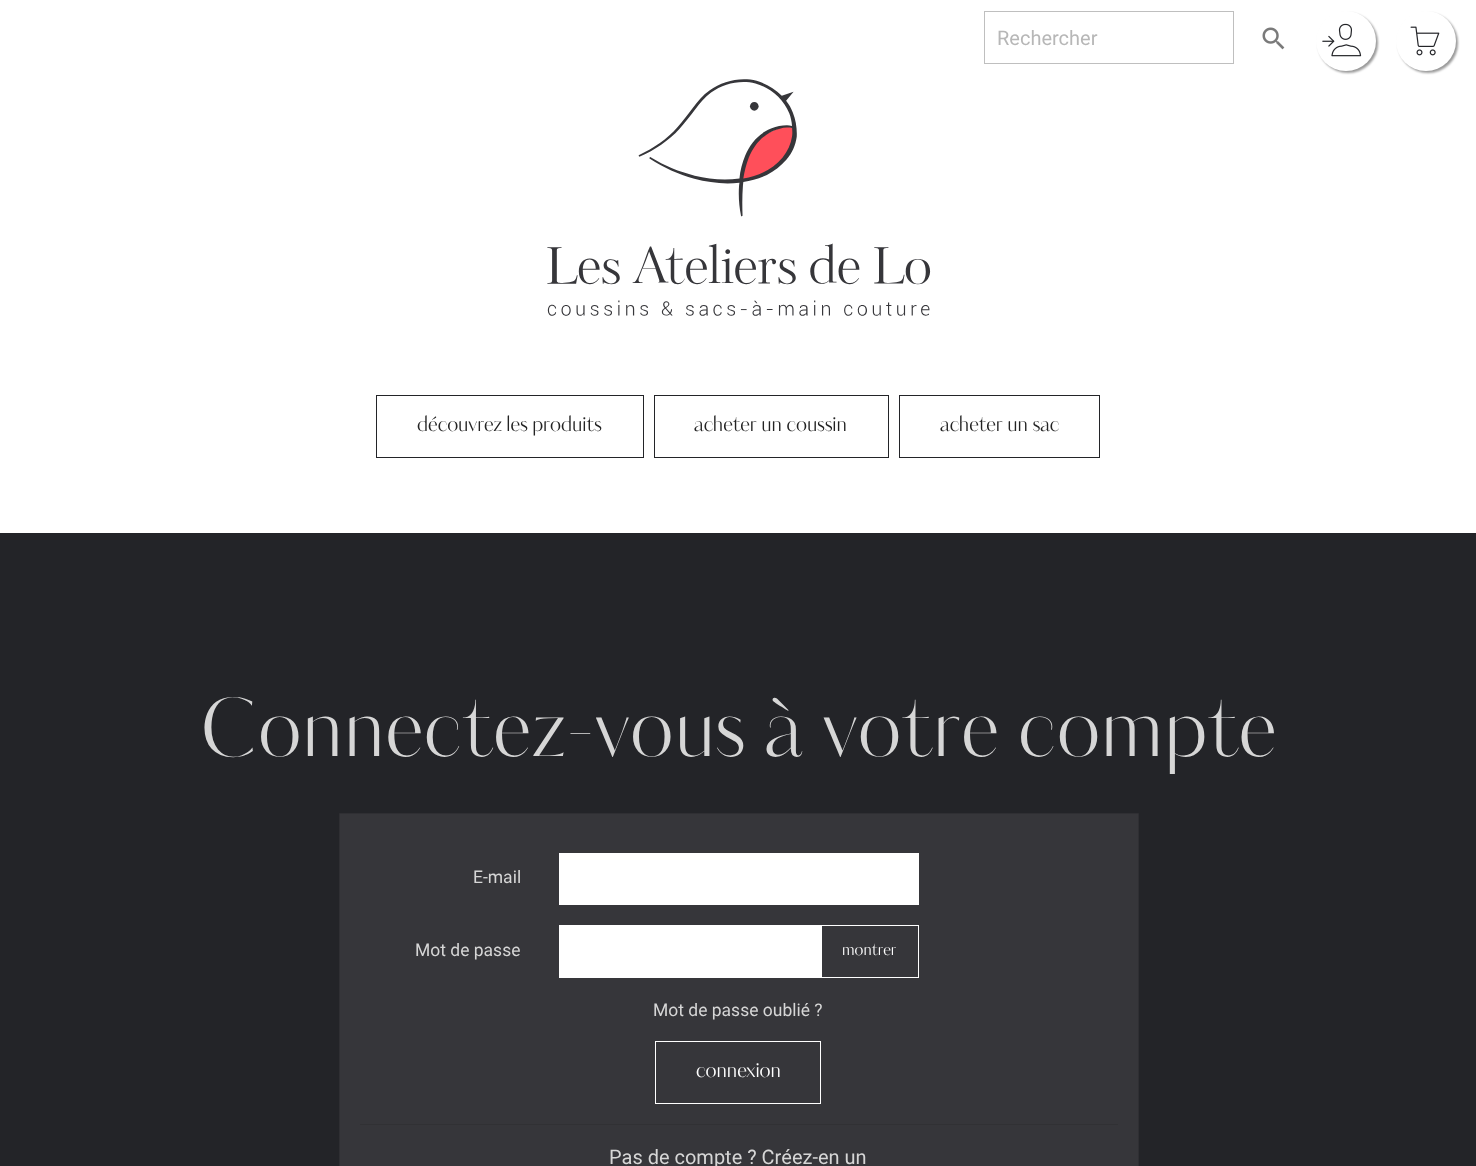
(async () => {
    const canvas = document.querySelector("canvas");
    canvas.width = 1476;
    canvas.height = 1166;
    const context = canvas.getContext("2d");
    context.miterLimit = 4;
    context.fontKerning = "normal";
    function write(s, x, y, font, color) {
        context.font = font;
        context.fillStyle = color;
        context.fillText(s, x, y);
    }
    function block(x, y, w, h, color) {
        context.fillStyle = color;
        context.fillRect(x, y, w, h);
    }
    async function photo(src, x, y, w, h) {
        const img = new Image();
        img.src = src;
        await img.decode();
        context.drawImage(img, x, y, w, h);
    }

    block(0, 0, 1476, 1166, "rgb(35, 36, 40)");
    block(0, 0, 1476, 533, "rgb(255, 255, 255)");
    context.strokeStyle = "rgb(191, 191, 191)";
    context.strokeRect(984.5, 11.5, 249, 52);
    write("Rechercher", 997, 45, "20px Roboto", "rgb(183, 183, 183)");
    await photo("media/1.png", 1262, 27, 23, 23);
    context.fillStyle = "rgba(0, 0, 0, 0.4)";
    context.filter = "blur(1px)";
    context.beginPath();
    context.roundRect(1318, 13, 60, 60, 30);
    context.fill();
    context.filter = "none";
    context.fillStyle = "rgb(255, 255, 255)";
    context.beginPath();
    context.arc(1346, 41, 30, 0, Math.PI * 2);
    context.fill();
    await photo("media/2.png", 1322, 23, 40, 34);
    context.fillStyle = "rgba(0, 0, 0, 0.4)";
    context.filter = "blur(1px)";
    context.beginPath();
    context.roundRect(1398, 13, 60, 60, 30);
    context.fill();
    context.filter = "none";
    context.fillStyle = "rgb(255, 255, 255)";
    context.beginPath();
    context.arc(1426, 41, 30, 0, Math.PI * 2);
    context.fill();
    await photo("media/3.png", 1410, 26, 30, 30);
    await photo("media/4.png", 547, 79, 384, 237);
    context.strokeStyle = "rgb(35, 36, 40)";
    context.strokeRect(376.5, 395.5, 267, 62);
    write("découvrez les produits", 417, 431, "20px 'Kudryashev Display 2'", "rgb(35, 35, 35)");
    context.strokeRect(654.5, 395.5, 234, 62);
    write("acheter un coussin", 694, 431, "20px 'Kudryashev Display 2'", "rgb(35, 35, 35)");
    context.strokeRect(899.5, 395.5, 200, 62);
    write("acheter un sac", 940, 431, "20px 'Kudryashev Display 2'", "rgb(35, 35, 35)");
    context.letterSpacing = "1px";
    write("Connectez-vous à votre compte", 200, 756, "80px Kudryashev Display", "rgb(214, 214, 214)");
    context.fillStyle = "rgb(54, 54, 58)";
    context.beginPath();
    context.rect(339.5, 813.5, 799, 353);
    context.fill();
    context.strokeStyle = "rgb(47, 47, 51)";
    context.stroke();
    context.letterSpacing = "0px";
    write("E-mail", 473, 883, "17.5px Roboto", "rgb(214, 214, 214)");
    block(559, 853, 360, 52, "rgb(255, 255, 255)");
    write("Mot de passe", 415, 956, "17.5px Roboto", "rgb(214, 214, 214)");
    block(559, 925, 262, 53, "rgb(255, 255, 255)");
    context.strokeStyle = "rgb(255, 255, 255)";
    context.strokeRect(821.5, 925.5, 97, 52);
    write("montrer", 842, 955, "16px 'Kudryashev Display 2'", "rgb(255, 255, 255)");
    write("Mot de passe oublié ?", 653, 1016, "17.5px Roboto", "rgb(214, 214, 214)");
    context.strokeRect(655.5, 1041.5, 165, 62);
    write("connexion", 696, 1077, "20px 'Kudryashev Display 2'", "rgb(255, 255, 255)");
    block(360, 1124, 758, 1, "rgb(49, 49, 52)");
    write("Pas de compte ? Créez-en un", 609, 1164, "20px Roboto", "rgb(214, 214, 214)");
})();
